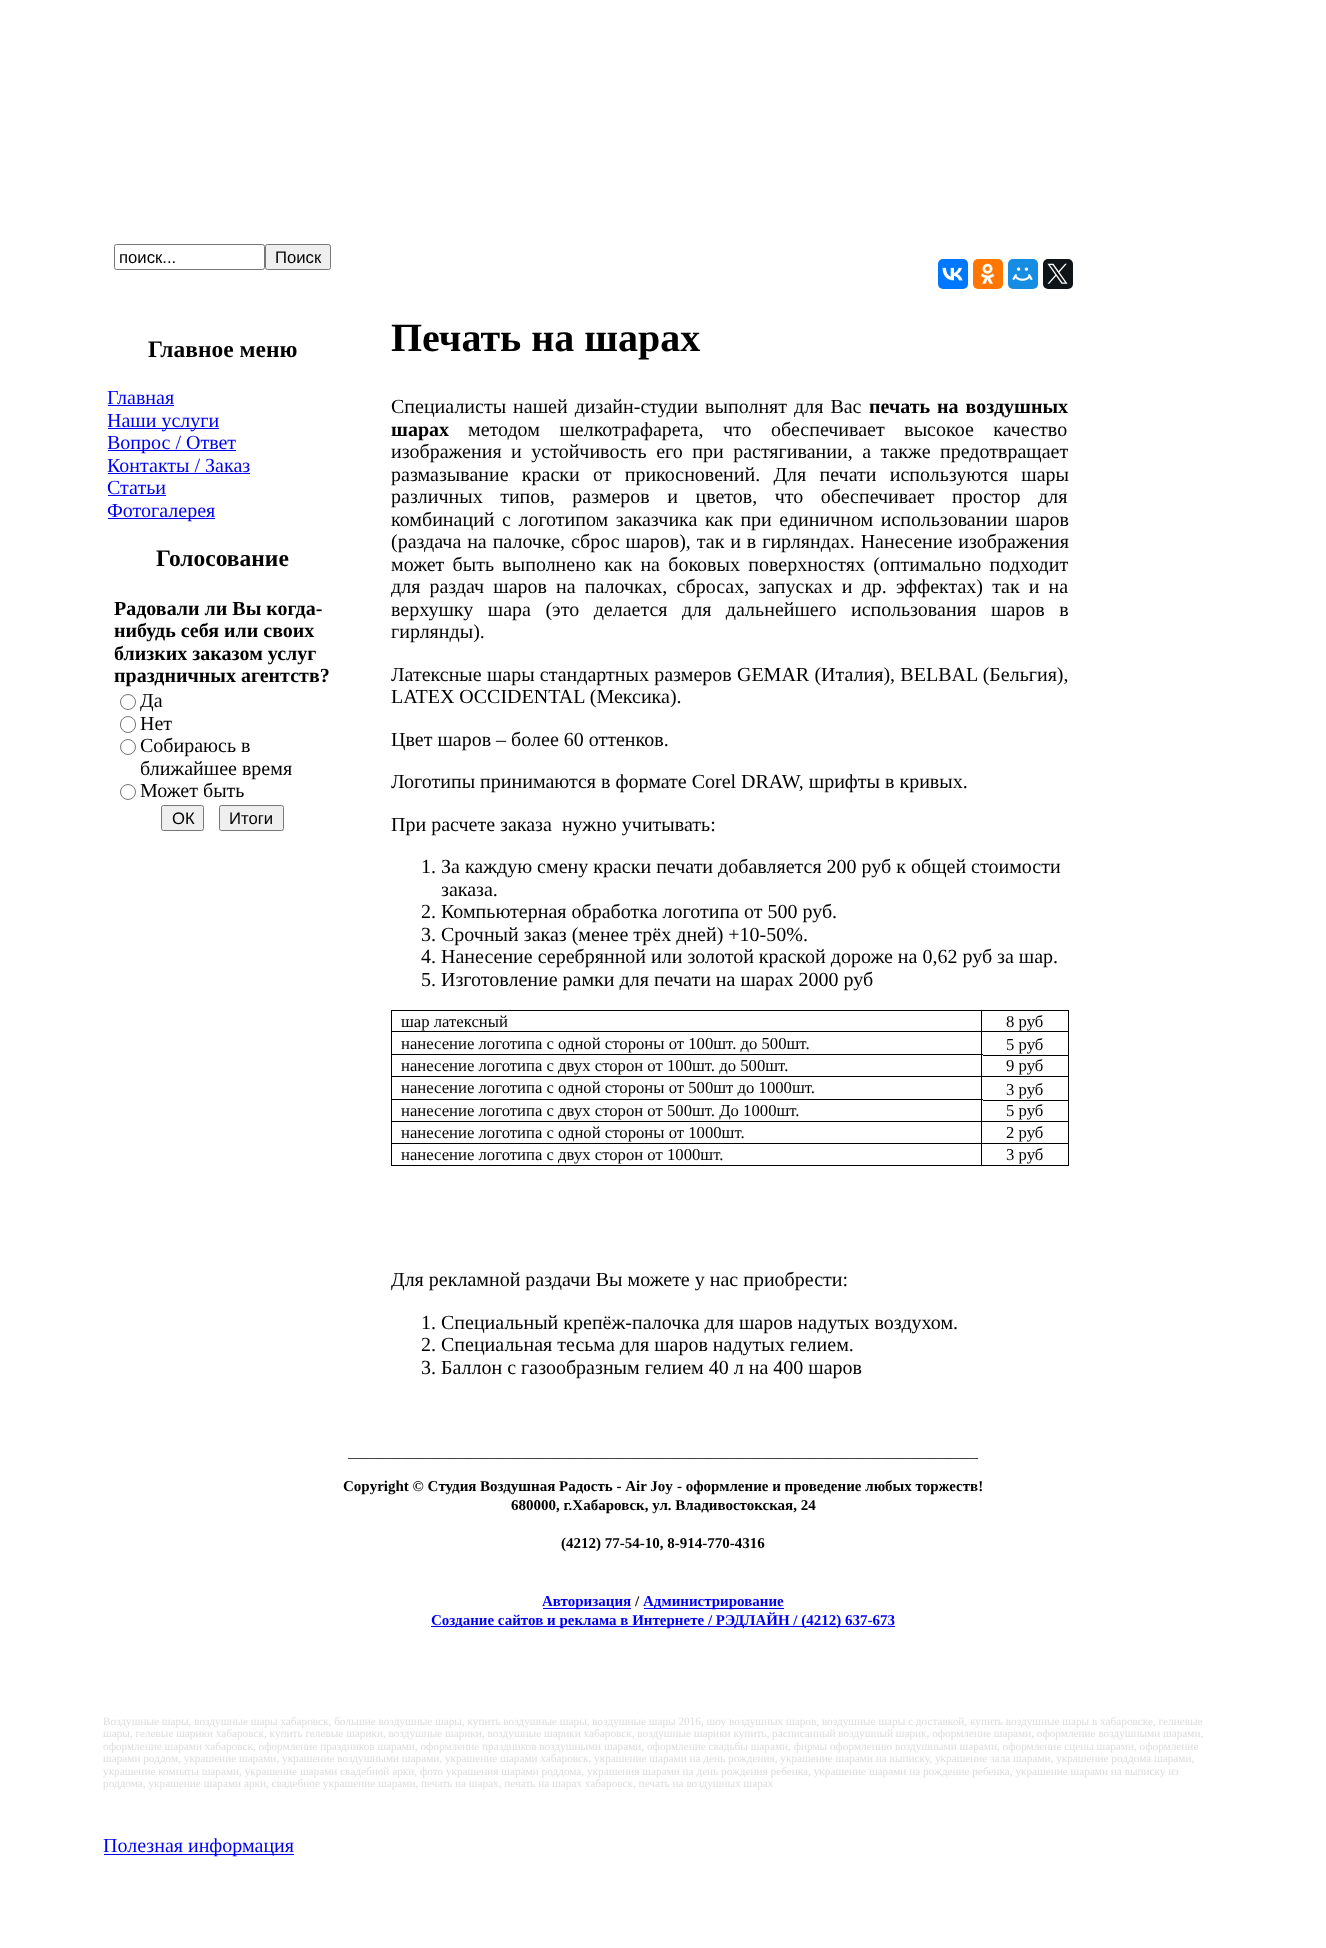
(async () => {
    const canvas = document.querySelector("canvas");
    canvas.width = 1326;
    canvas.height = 1948;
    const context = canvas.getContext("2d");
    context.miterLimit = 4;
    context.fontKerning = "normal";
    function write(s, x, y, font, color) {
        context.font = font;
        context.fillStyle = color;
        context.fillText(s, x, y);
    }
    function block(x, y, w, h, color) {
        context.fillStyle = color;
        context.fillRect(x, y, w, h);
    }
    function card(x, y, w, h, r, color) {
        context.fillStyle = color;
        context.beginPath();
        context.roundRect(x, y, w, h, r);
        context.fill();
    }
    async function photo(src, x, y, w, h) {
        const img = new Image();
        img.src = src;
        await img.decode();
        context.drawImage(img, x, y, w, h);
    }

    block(0, 0, 1326, 1948, "rgb(255, 255, 255)");
    context.beginPath();
    context.roundRect(114.5, 244.5, 150, 25, 2);
    context.strokeStyle = "rgb(118, 118, 118)";
    context.stroke();
    write("поиск...", 119, 263, "16.7px Liberation Sans", "rgb(0, 0, 0)");
    context.fillStyle = "rgb(239, 239, 239)";
    context.beginPath();
    context.roundRect(265.5, 244.5, 65, 25, 2);
    context.fill();
    context.stroke();
    write("Поиск", 275, 263, "16.7px Liberation Sans", "rgb(0, 0, 0)");
    write("Главное меню", 148, 357, "bold 23.5px Liberation Serif", "rgb(0, 0, 0)");
    write("Главная", 107, 404, "20px Liberation Serif", "rgb(0, 0, 238)");
    block(108, 405, 66, 1, "rgb(0, 0, 238)");
    block(108, 428, 111, 1, "rgb(0, 0, 238)");
    write("Наши услуги", 107, 427, "20px Liberation Serif", "rgb(0, 0, 238)");
    block(108, 450, 128, 1, "rgb(0, 0, 238)");
    write("Вопрос / Ответ", 107, 449, "20px Liberation Serif", "rgb(0, 0, 238)");
    write("Контакты / Заказ", 107, 472, "20px Liberation Serif", "rgb(0, 0, 238)");
    block(108, 473, 142, 1, "rgb(0, 0, 238)");
    write("Статьи", 107, 494, "20px Liberation Serif", "rgb(0, 0, 238)");
    block(108, 495, 58, 1, "rgb(0, 0, 238)");
    block(108, 518, 107, 1, "rgb(0, 0, 238)");
    write("Фотогалерея", 107, 517, "20px Liberation Serif", "rgb(0, 0, 238)");
    write("Голосование", 156, 566, "bold 23.5px Liberation Serif", "rgb(0, 0, 0)");
    write("Радовали ли Вы когда-", 114, 615, "bold 20px Liberation Serif", "rgb(0, 0, 0)");
    write("нибудь себя или своих", 114, 637, "bold 20px Liberation Serif", "rgb(0, 0, 0)");
    write("близких заказом услуг", 114, 660, "bold 20px Liberation Serif", "rgb(0, 0, 0)");
    write("праздничных агентств?", 114, 682, "bold 20px Liberation Serif", "rgb(0, 0, 0)");
    context.beginPath();
    context.arc(128, 702, 7.5, 0, Math.PI * 2);
    context.stroke();
    write("Да", 140, 707, "20px Liberation Serif", "rgb(0, 0, 0)");
    context.beginPath();
    context.roundRect(120.5, 716.5, 15, 16, 7.5);
    context.stroke();
    write("Нет", 140, 730, "20px Liberation Serif", "rgb(0, 0, 0)");
    context.beginPath();
    context.arc(128, 747, 7.5, 0, Math.PI * 2);
    context.stroke();
    write("Собираюсь в", 140, 752, "20px Liberation Serif", "rgb(0, 0, 0)");
    write("ближайшее время", 140, 775, "20px Liberation Serif", "rgb(0, 0, 0)");
    context.beginPath();
    context.arc(128, 792, 7.5, 0, Math.PI * 2);
    context.stroke();
    write("Может быть", 140, 797, "20px Liberation Serif", "rgb(0, 0, 0)");
    context.fillStyle = "rgb(239, 239, 239)";
    context.beginPath();
    context.roundRect(161.5, 805.5, 42, 25, 2);
    context.fill();
    context.stroke();
    write("ОК", 172, 824, "16.7px Liberation Sans", "rgb(0, 0, 0)");
    context.fillStyle = "rgb(239, 239, 239)";
    context.beginPath();
    context.roundRect(219.5, 805.5, 64, 25, 2);
    context.fill();
    context.stroke();
    write("Итоги", 229, 824, "16.7px Liberation Sans", "rgb(0, 0, 0)");
    card(938, 259, 30, 30, 5, "rgb(0, 119, 255)");
    await photo("media/1.png", 942, 267, 21, 14);
    card(973, 259, 30, 30, 5, "rgb(255, 119, 0)");
    await photo("media/2.png", 980, 263, 15, 21);
    card(1008, 259, 30, 30, 5, "rgb(22, 141, 226)");
    await photo("media/3.png", 1012, 267, 21, 14);
    card(1043, 259, 30, 30, 5, "rgb(15, 20, 25)");
    await photo("media/4.png", 1047, 263, 21, 21);
    write("Печать на шарах", 391, 351, "bold 40px Liberation Serif", "rgb(0, 0, 0)");
    context.wordSpacing = "2px";
    write("Специалисты нашей дизайн-студии выполнят для Вас", 391, 413, "20px Liberation Serif", "rgb(0, 0, 0)");
    write("печать на воздушных", 869, 413, "bold 20px Liberation Serif", "rgb(0, 0, 0)");
    context.wordSpacing = "0px";
    write("шарах", 391, 436, "bold 20px Liberation Serif", "rgb(0, 0, 0)");
    context.wordSpacing = "14.5px";
    write("методом шелкотрафарета, что обеспечивает высокое качество", 468, 436, "20px Liberation Serif", "rgb(0, 0, 0)");
    context.wordSpacing = "4.5px";
    write("изображения и устойчивость его при растягивании, а также предотвращает", 391, 458, "20px Liberation Serif", "rgb(0, 0, 0)");
    context.wordSpacing = "8.25px";
    write("размазывание краски от прикосновений. Для печати используются шары", 391, 481, "20px Liberation Serif", "rgb(0, 0, 0)");
    context.wordSpacing = "12.5px";
    write("различных типов, размеров и цветов, что обеспечивает простор для", 391, 503, "20px Liberation Serif", "rgb(0, 0, 0)");
    context.wordSpacing = "2.5px";
    write("комбинаций с логотипом заказчика как при единичном использовании шаров", 391, 526, "20px Liberation Serif", "rgb(0, 0, 0)");
    context.wordSpacing = "0.9px";
    write("(раздача на палочке, сброс шаров), так и в гирляндах. Нанесение изображения", 391, 548, "20px Liberation Serif", "rgb(0, 0, 0)");
    context.wordSpacing = "3.25px";
    write("может быть выполнено как на боковых поверхностях (оптимально подходит", 391, 571, "20px Liberation Serif", "rgb(0, 0, 0)");
    context.wordSpacing = "4.1px";
    write("для раздач шаров на палочках, сбросах, запусках и др. эффектах) так и на", 391, 593, "20px Liberation Serif", "rgb(0, 0, 0)");
    context.wordSpacing = "9.5px";
    write("верхушку шара (это делается для дальнейшего использования шаров в", 391, 616, "20px Liberation Serif", "rgb(0, 0, 0)");
    context.wordSpacing = "0px";
    write("гирлянды).", 391, 638, "20px Liberation Serif", "rgb(0, 0, 0)");
    context.wordSpacing = "0.25px";
    write("Латексные шары стандартных размеров GEMAR (Италия), BELBAL (Бельгия),", 391, 681, "20px Liberation Serif", "rgb(0, 0, 0)");
    context.wordSpacing = "0px";
    write("LATEX OCCIDENTAL (Мексика).", 391, 703, "20px Liberation Serif", "rgb(0, 0, 0)");
    write("Цвет шаров – более 60 оттенков.", 391, 746, "20px Liberation Serif", "rgb(0, 0, 0)");
    write("Логотипы принимаются в формате Corel DRAW, шрифты в кривых.", 391, 788, "20px Liberation Serif", "rgb(0, 0, 0)");
    write("При расчете заказа  нужно учитывать:", 391, 831, "20px Liberation Serif", "rgb(0, 0, 0)");
    write("1. За каждую смену краски печати добавляется 200 руб к общей стоимости", 421, 873, "20px Liberation Serif", "rgb(0, 0, 0)");
    write("заказа.", 441, 896, "20px Liberation Serif", "rgb(0, 0, 0)");
    write("2. Компьютерная обработка логотипа от 500 руб.", 421, 918, "20px Liberation Serif", "rgb(0, 0, 0)");
    write("3. Срочный заказ (менее трёх дней) +10-50%.", 421, 941, "20px Liberation Serif", "rgb(0, 0, 0)");
    write("4. Нанесение серебрянной или золотой краской дороже на 0,62 руб за шар.", 421, 963, "20px Liberation Serif", "rgb(0, 0, 0)");
    write("5. Изготовление рамки для печати на шарах 2000 руб", 421, 986, "20px Liberation Serif", "rgb(0, 0, 0)");
    block(391, 1010, 678, 1, "rgb(0, 0, 0)");
    block(391, 1031, 553, 1, "rgb(0, 0, 0)");
    block(391, 1010, 1, 23, "rgb(0, 0, 0)");
    write("шар латексный", 401, 1027, "16.7px Liberation Serif", "rgb(0, 0, 0)");
    block(981, 1010, 1, 156, "rgb(0, 0, 0)");
    block(944, 1031, 39, 1, "rgb(0, 0, 0)");
    block(1068, 1010, 1, 45, "rgb(0, 0, 0)");
    block(983, 1031, 86, 1, "rgb(0, 0, 0)");
    write("8 руб", 1006, 1027, "16.7px Liberation Serif", "rgb(0, 0, 0)");
    block(391, 1054, 592, 1, "rgb(0, 0, 0)");
    block(391, 1033, 1, 22, "rgb(0, 0, 0)");
    write("нанесение логотипа с одной стороны от 100шт. до 500шт.", 401, 1049, "16.7px Liberation Serif", "rgb(0, 0, 0)");
    write("5 руб", 1006, 1050, "16.7px Liberation Serif", "rgb(0, 0, 0)");
    block(391, 1076, 592, 1, "rgb(0, 0, 0)");
    block(391, 1055, 1, 23, "rgb(0, 0, 0)");
    write("нанесение логотипа с двух сторон от 100шт. до 500шт.", 401, 1071, "16.7px Liberation Serif", "rgb(0, 0, 0)");
    block(983, 1055, 86, 1, "rgb(0, 0, 0)");
    block(1068, 1055, 1, 45, "rgb(0, 0, 0)");
    block(983, 1076, 86, 1, "rgb(0, 0, 0)");
    write("9 руб", 1006, 1071, "16.7px Liberation Serif", "rgb(0, 0, 0)");
    block(391, 1099, 592, 1, "rgb(0, 0, 0)");
    block(391, 1078, 1, 22, "rgb(0, 0, 0)");
    write("нанесение логотипа с одной стороны от 500шт до 1000шт.", 401, 1093, "16.7px Liberation Serif", "rgb(0, 0, 0)");
    write("3 руб", 1006, 1095, "16.7px Liberation Serif", "rgb(0, 0, 0)");
    block(391, 1121, 592, 1, "rgb(0, 0, 0)");
    block(391, 1100, 1, 23, "rgb(0, 0, 0)");
    write("нанесение логотипа с двух сторон от 500шт. До 1000шт.", 401, 1116, "16.7px Liberation Serif", "rgb(0, 0, 0)");
    block(983, 1100, 86, 1, "rgb(0, 0, 0)");
    block(1068, 1100, 1, 66, "rgb(0, 0, 0)");
    block(983, 1121, 86, 1, "rgb(0, 0, 0)");
    write("5 руб", 1006, 1116, "16.7px Liberation Serif", "rgb(0, 0, 0)");
    block(391, 1143, 678, 1, "rgb(0, 0, 0)");
    block(391, 1123, 1, 21, "rgb(0, 0, 0)");
    write("нанесение логотипа с одной стороны от 1000шт.", 401, 1138, "16.7px Liberation Serif", "rgb(0, 0, 0)");
    write("2 руб", 1006, 1138, "16.7px Liberation Serif", "rgb(0, 0, 0)");
    block(391, 1165, 678, 1, "rgb(0, 0, 0)");
    block(391, 1144, 1, 22, "rgb(0, 0, 0)");
    write("нанесение логотипа с двух сторон от 1000шт.", 401, 1160, "16.7px Liberation Serif", "rgb(0, 0, 0)");
    write("3 руб", 1006, 1160, "16.7px Liberation Serif", "rgb(0, 0, 0)");
    write("Для рекламной раздачи Вы можете у нас приобрести:", 391, 1286, "20px Liberation Serif", "rgb(0, 0, 0)");
    write("1. Специальный крепёж-палочка для шаров надутых воздухом.", 421, 1329, "20px Liberation Serif", "rgb(0, 0, 0)");
    write("2. Специальная тесьма для шаров надутых гелием.", 421, 1351, "20px Liberation Serif", "rgb(0, 0, 0)");
    write("3. Баллон с газообразным гелием 40 л на 400 шаров", 421, 1374, "20px Liberation Serif", "rgb(0, 0, 0)");
    write("____________________________________________________________________________________", 348, 1457, "15px Liberation Serif", "rgb(0, 0, 0)");
    write("Copyright © Cтудия", 343, 1491, "bold 15px Liberation Serif", "rgb(0, 0, 0)");
    write("Воздушная Радость - Air Joy", 480, 1491, "bold 15px Liberation Serif", "rgb(0, 0, 0)");
    write("- оформление и проведение любых торжеств!", 677, 1491, "bold 15px Liberation Serif", "rgb(0, 0, 0)");
    write("680000, г.Хабаровск, ул. Владивостокская, 24", 511, 1510, "bold 15px Liberation Serif", "rgb(0, 0, 0)");
    write("(4212) 77-54-10, 8-914-770-4316", 561, 1548, "bold 15px Liberation Serif", "rgb(0, 0, 0)");
    block(543, 1608, 88, 1, "rgb(0, 0, 238)");
    write("Авторизация", 542, 1606, "bold 15px Liberation Serif", "rgb(0, 0, 238)");
    write("/", 635, 1606, "bold 15px Liberation Serif", "rgb(0, 0, 0)");
    block(644, 1608, 140, 1, "rgb(0, 0, 238)");
    write("Администрирование", 643, 1606, "bold 15px Liberation Serif", "rgb(0, 0, 238)");
    block(431, 1626, 464, 1, "rgb(0, 0, 238)");
    write("Создание сайтов и реклама в Интернете / РЭДЛАЙН / (4212) 637-673", 431, 1625, "bold 15px Liberation Serif", "rgb(0, 0, 238)");
    write("Воздушные шары, воздушные шары хабаровск, большие воздушные шары, купить воздушные шары, воздушные шары 2016, шоу воздушных шаров, воздушные шары с доставкой, купить воздушные шары в хабаровске, гелиевые", 103, 1725, "11.25px Liberation Serif", "rgb(221, 221, 221)");
    write("шары, гелевые шарики хабаровск, купить гелевые шарики, воздушные шарики, воздушные шарики хабаровск, воздушные шарики купить, расписанный воздушный шарик, оформление шарами, оформление воздушными шарами,", 103, 1737, "11.25px Liberation Serif", "rgb(221, 221, 221)");
    write("оформление шарами хабаровск, оформление праздников шарами, оформление праздников воздушными шарами, оформление свадьбы шарами, фирмы оформлению воздушными шарами, оформление сцены шарами, оформление", 103, 1750, "11.25px Liberation Serif", "rgb(221, 221, 221)");
    write("шарами роддом, украшение шарами, украшение воздушными шарами, украшение шарами хабаровск, украшение шарами на день рождения, украшение шарами на выписку, украшение зала шарами, украшение роддома шарами,", 103, 1762, "11.25px Liberation Serif", "rgb(221, 221, 221)");
    write("украшение комнаты шарами, украшение шарами свадебной арки, фото украшения шарами роддома, украшения шарами на день рождения ребенка, украшение шарами на рождение ребенка, украшение шарами на выписку из", 103, 1775, "11.25px Liberation Serif", "rgb(221, 221, 221)");
    write("роддома, украшение шарами арки, свадебное украшение шарами, печать на шарах, печать на шарах хабаровск, печать на воздушных шарах", 103, 1787, "11.25px Liberation Serif", "rgb(221, 221, 221)");
    block(104, 1854, 190, 1, "rgb(0, 0, 238)");
    write("Полезная информация", 103, 1852, "20px Liberation Serif", "rgb(0, 0, 238)");
})();
